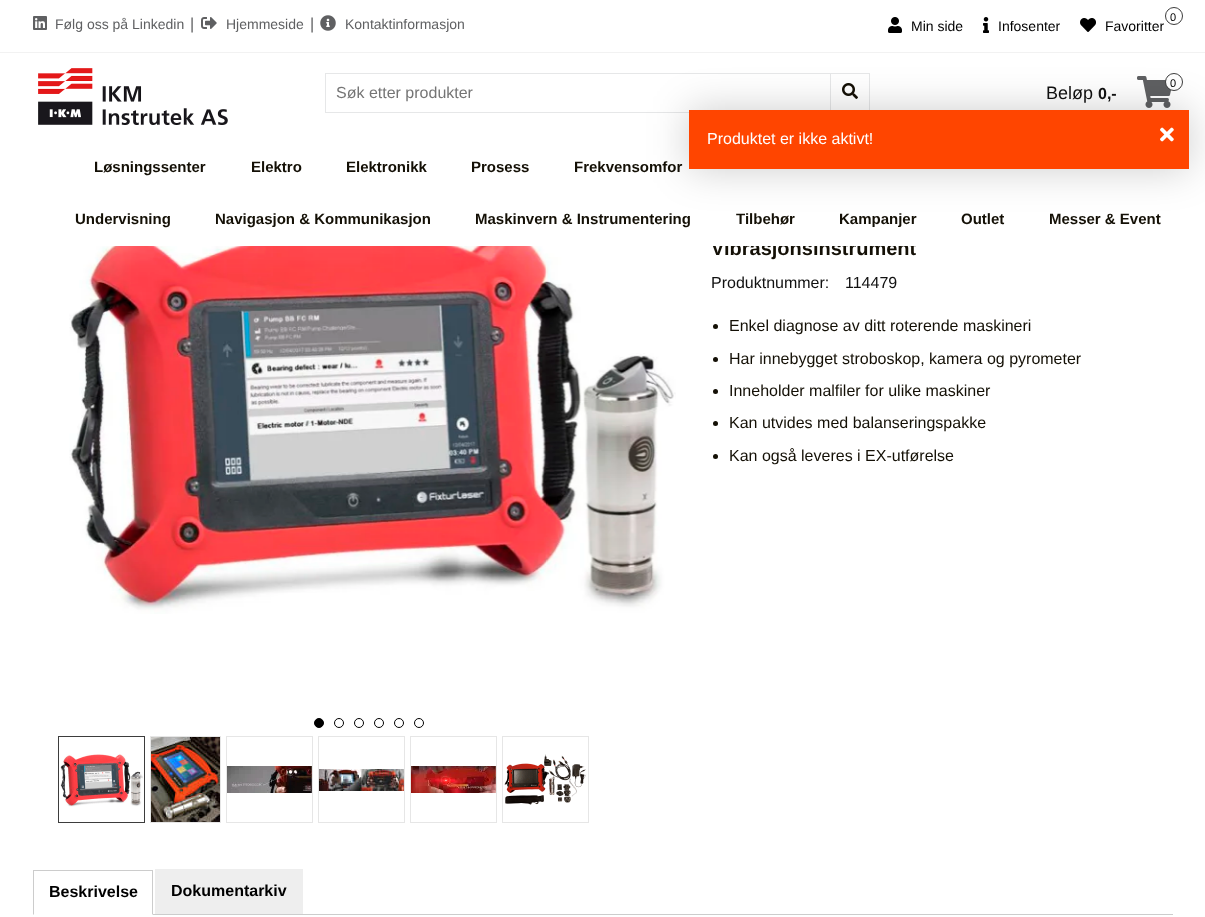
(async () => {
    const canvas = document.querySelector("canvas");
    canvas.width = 1205;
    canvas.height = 917;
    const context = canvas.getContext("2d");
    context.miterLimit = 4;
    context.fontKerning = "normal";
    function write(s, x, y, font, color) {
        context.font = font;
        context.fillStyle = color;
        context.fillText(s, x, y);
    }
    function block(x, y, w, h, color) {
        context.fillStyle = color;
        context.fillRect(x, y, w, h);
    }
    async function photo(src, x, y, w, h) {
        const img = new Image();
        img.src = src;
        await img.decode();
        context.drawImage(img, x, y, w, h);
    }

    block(0, 0, 1205, 917, "rgb(255, 255, 255)");
    block(0, 52, 1205, 1, "rgb(242, 242, 242)");
    await photo("media/1.png", 33, 16, 14, 14);
    write("Følg oss på Linkedin", 55, 29, "14px Liberation Sans", "rgb(95, 96, 98)");
    write("|", 190, 29, "16px Liberation Sans", "rgb(95, 96, 98)");
    await photo("media/2.png", 201, 17, 16, 12);
    write("Hjemmeside", 226, 29, "14px Liberation Sans", "rgb(95, 96, 98)");
    write("|", 310, 29, "16px Liberation Sans", "rgb(95, 96, 98)");
    await photo("media/3.png", 320, 15, 16, 16);
    write("Kontaktinformasjon", 345, 29, "14px Liberation Sans", "rgb(95, 96, 98)");
    await photo("media/4.png", 888, 17, 14, 16);
    write("Min side", 911, 31, "14px Liberation Sans", "rgb(0, 0, 0)");
    await photo("media/5.png", 983, 17, 6, 16);
    write("Infosenter", 998, 31, "14px Liberation Sans", "rgb(0, 0, 0)");
    context.beginPath();
    context.arc(1174, 16, 8.5, 0, Math.PI * 2);
    context.strokeStyle = "rgb(61, 61, 61)";
    context.stroke();
    write("0", 1170, 21, "11px Liberation Sans", "rgb(0, 0, 0)");
    await photo("media/6.png", 1080, 18, 16, 14);
    write("Favoritter", 1105, 31, "14px Liberation Sans", "rgb(0, 0, 0)");
    await photo("media/7.png", 38, 68, 190, 57);
    context.strokeStyle = "rgb(230, 231, 232)";
    context.strokeRect(325.5, 73.5, 509, 39);
    write("Søk etter produkter", 336, 98, "16px Liberation Sans", "rgb(117, 117, 117)");
    block(834, 74, 1, 36, "rgb(255, 255, 255)");
    context.strokeRect(830.5, 73.5, 39, 39);
    await photo("media/8.png", 842, 83, 16, 16);
    await photo("media/9.png", 1137, 76, 34, 32);
    context.beginPath();
    context.arc(1174, 82, 8.5, 0, Math.PI * 2);
    context.fill();
    context.strokeStyle = "rgb(61, 61, 61)";
    context.stroke();
    write("0", 1170, 87, "11px Liberation Sans", "rgb(0, 0, 0)");
    write("Beløp", 1046, 99, "18px Liberation Sans", "rgb(17, 17, 17)");
    write("0,-", 1098, 99, "bold 16px Liberation Sans", "rgb(17, 17, 17)");
    write("Vibrasjonsinstrument", 711, 255, "bold 20px Liberation Sans", "rgb(20, 16, 6)");
    block(711, 240, 205, 6, "rgb(255, 255, 255)");
    write("Løsningssenter", 94, 172, "bold 15px Liberation Sans", "rgb(20, 16, 6)");
    write("Elektro", 251, 172, "bold 15px Liberation Sans", "rgb(20, 16, 6)");
    write("Elektronikk", 346, 172, "bold 15px Liberation Sans", "rgb(20, 16, 6)");
    write("Prosess", 471, 172, "bold 15px Liberation Sans", "rgb(20, 16, 6)");
    write("Frekvensomfor", 574, 172, "bold 15px Liberation Sans", "rgb(20, 16, 6)");
    write("Undervisning", 75, 224, "bold 15px Liberation Sans", "rgb(20, 16, 6)");
    write("Navigasjon & Kommunikasjon", 215, 224, "bold 15px Liberation Sans", "rgb(20, 16, 6)");
    write("Maskinvern & Instrumentering", 475, 224, "bold 15px Liberation Sans", "rgb(20, 16, 6)");
    write("Tilbehør", 736, 224, "bold 15px Liberation Sans", "rgb(20, 16, 6)");
    write("Kampanjer", 839, 224, "bold 15px Liberation Sans", "rgb(20, 16, 6)");
    write("Outlet", 961, 224, "bold 15px Liberation Sans", "rgb(20, 16, 6)");
    write("Messer & Event", 1049, 224, "bold 15px Liberation Sans", "rgb(20, 16, 6)");
    context.fillStyle = "rgba(0, 0, 0, 0.2)";
    context.filter = "blur(20px)";
    context.beginPath();
    context.roundRect(689, 110, 500, 59, 2);
    context.fill();
    context.filter = "none";
    block(689, 110, 500, 59, "rgb(255, 69, 0)");
    write("Produktet er ikke aktivt!", 707, 144, "16px Liberation Sans", "rgb(255, 255, 255)");
    await photo("media/10.png", 1160, 127, 14, 15);
    await photo("media/11.png", 69, 246, 607, 368);
    context.fillStyle = "rgb(0, 0, 0)";
    context.beginPath();
    context.arc(319, 723, 4.5, 0, Math.PI * 2);
    context.fill();
    context.strokeStyle = "rgb(0, 0, 0)";
    context.stroke();
    context.beginPath();
    context.arc(339, 723, 4.5, 0, Math.PI * 2);
    context.stroke();
    context.beginPath();
    context.arc(359, 723, 4.5, 0, Math.PI * 2);
    context.stroke();
    context.beginPath();
    context.arc(379, 723, 4.5, 0, Math.PI * 2);
    context.stroke();
    context.beginPath();
    context.arc(399, 723, 4.5, 0, Math.PI * 2);
    context.stroke();
    context.beginPath();
    context.arc(419, 723, 4.5, 0, Math.PI * 2);
    context.stroke();
    context.strokeStyle = "rgb(61, 61, 61)";
    context.strokeRect(58.5, 736.5, 86, 86);
    await photo("media/12.png", 60, 754, 83, 53);
    context.strokeStyle = "rgb(230, 230, 230)";
    context.strokeRect(150.5, 736.5, 70, 86);
    await photo("media/13.png", 151, 737, 69, 85);
    context.strokeRect(226.5, 736.5, 86, 86);
    await photo("media/14.png", 227, 766, 85, 27);
    context.strokeRect(318.5, 736.5, 86, 86);
    await photo("media/15.png", 319, 769, 85, 22);
    context.strokeRect(410.5, 736.5, 86, 86);
    await photo("media/16.png", 411, 766, 85, 27);
    context.strokeRect(502.5, 736.5, 86, 86);
    await photo("media/17.png", 504, 754, 83, 51);
    write("Produktnummer:", 711, 288, "16px Liberation Sans", "rgb(17, 17, 17)");
    write("114479", 845, 288, "16px Liberation Sans", "rgb(17, 17, 17)");
    context.fillStyle = "rgb(20, 16, 6)";
    context.beginPath();
    context.arc(715.5, 326.5, 2.5, 0, Math.PI * 2);
    context.fill();
    write("Enkel diagnose av ditt roterende maskineri", 729, 331, "16px Liberation Sans", "rgb(20, 16, 6)");
    context.beginPath();
    context.arc(715.5, 359.5, 2.5, 0, Math.PI * 2);
    context.fill();
    write("Har innebygget stroboskop, kamera og pyrometer", 729, 364, "16px Liberation Sans", "rgb(20, 16, 6)");
    context.beginPath();
    context.arc(715.5, 391.5, 2.5, 0, Math.PI * 2);
    context.fill();
    write("Inneholder malfiler for ulike maskiner", 729, 396, "16px Liberation Sans", "rgb(20, 16, 6)");
    context.beginPath();
    context.arc(715.5, 423.5, 2.5, 0, Math.PI * 2);
    context.fill();
    write("Kan utvides med balanseringspakke", 729, 428, "16px Liberation Sans", "rgb(20, 16, 6)");
    context.beginPath();
    context.arc(715.5, 456.5, 2.5, 0, Math.PI * 2);
    context.fill();
    write("Kan også leveres i EX-utførelse", 729, 461, "16px Liberation Sans", "rgb(20, 16, 6)");
    block(153, 914, 1020, 1, "rgb(204, 204, 204)");
    block(33, 870, 120, 1, "rgb(204, 204, 204)");
    context.beginPath();
    context.moveTo(153, 870);
    context.lineTo(153, 915);
    context.lineTo(152, 914);
    context.lineTo(152, 871);
    context.closePath();
    context.fill();
    context.beginPath();
    context.moveTo(33, 915);
    context.lineTo(33, 870);
    context.lineTo(34, 871);
    context.lineTo(34, 914);
    context.closePath();
    context.fill();
    write("Beskrivelse", 49, 897, "bold 16px Liberation Sans", "rgb(0, 0, 0)");
    block(155, 869, 148, 45, "rgb(238, 238, 238)");
    write("Dokumentarkiv", 171, 896, "bold 16px Liberation Sans", "rgb(0, 0, 0)");
})();
